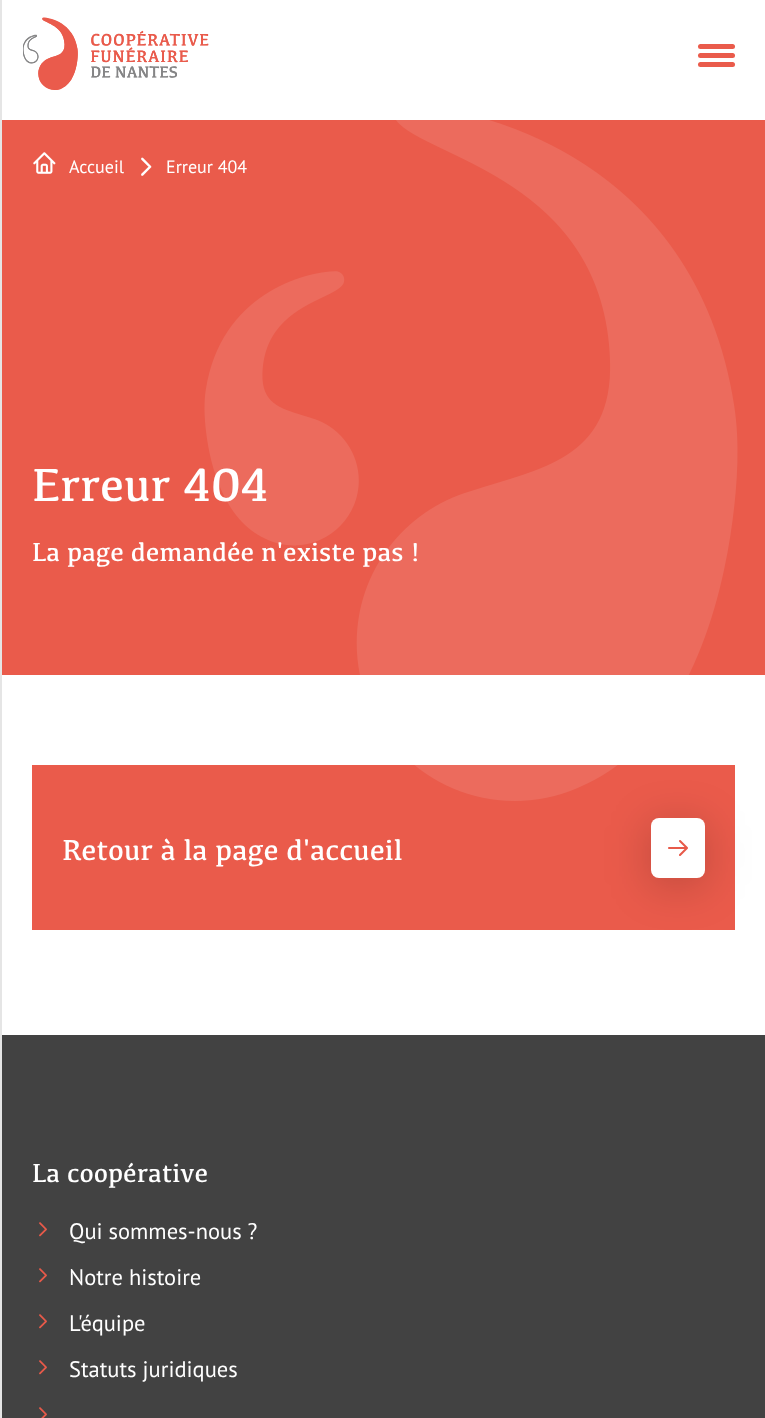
(async () => {
    const canvas = document.querySelector("canvas");
    canvas.width = 765;
    canvas.height = 1418;
    const context = canvas.getContext("2d");
    context.miterLimit = 4;
    context.fontKerning = "normal";
    function write(s, x, y, font, color) {
        context.font = font;
        context.fillStyle = color;
        context.fillText(s, x, y);
    }
    function block(x, y, w, h, color) {
        context.fillStyle = color;
        context.fillRect(x, y, w, h);
    }
    function card(x, y, w, h, r, color) {
        context.fillStyle = color;
        context.beginPath();
        context.roundRect(x, y, w, h, r);
        context.fill();
    }
    async function photo(src, x, y, w, h) {
        const img = new Image();
        img.src = src;
        await img.decode();
        context.drawImage(img, x, y, w, h);
    }

    block(0, 0, 765, 1418, "rgb(255, 255, 255)");
    await photo("media/1.png", 23, 17, 186, 73);
    card(698, 53, 37, 5, 2.5, "rgb(234, 91, 75)");
    card(698, 44, 37, 5, 2.5, "rgb(234, 91, 75)");
    card(698, 62, 37, 5, 2.5, "rgb(234, 91, 75)");
    block(0, 0, 2, 1418, "rgb(229, 229, 229)");
    block(2, 120, 763, 555, "rgb(234, 91, 75)");
    write("_", 32, 173, "24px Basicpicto", "rgb(255, 255, 255)");
    write("Accueil", 69, 173, "18px PT Sans", "rgb(255, 255, 255)");
    write(">", 132, 178, "27px Basicpicto", "rgb(255, 255, 255)");
    block(32, 765, 703, 165, "rgb(234, 91, 75)");
    context.fillStyle = "rgba(0, 0, 0, 0.2)";
    context.filter = "blur(22.5px)";
    context.beginPath();
    context.roundRect(651, 825, 54, 60, 8);
    context.fill();
    context.filter = "none";
    await photo("media/2.png", 204, 120, 534, 681);
    write("Erreur 404", 166, 173, "18px PT Sans", "rgb(255, 255, 255)");
    write("Erreur 404", 32, 501, "48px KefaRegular", "rgb(255, 255, 255)");
    write("La page demandée n'existe pas !", 32, 561, "27px KefaRegular", "rgb(255, 255, 255)");
    write("Retour à la page d'accueil", 62, 860, "30px KefaRegular", "rgb(255, 255, 255)");
    card(651, 818, 54, 60, 8, "rgb(255, 255, 255)");
    write("≥", 666, 858, "24px Basicpicto", "rgb(231, 90, 74)");
    block(2, 1035, 763, 383, "rgb(66, 66, 66)");
    write("La coopérative", 32, 1182, "27px KefaRegular", "rgb(255, 255, 255)");
    write(">", 32, 1238, "21px Basicpicto", "rgb(231, 90, 74)");
    write("Qui sommes-nous ?", 69, 1239, "22.5px PT Sans", "rgb(255, 255, 255)");
    write(">", 32, 1284, "21px Basicpicto", "rgb(231, 90, 74)");
    write("Notre histoire", 69, 1285, "22.5px PT Sans", "rgb(255, 255, 255)");
    write(">", 32, 1330, "21px Basicpicto", "rgb(231, 90, 74)");
    write("L'équipe", 69, 1331, "22.5px PT Sans", "rgb(255, 255, 255)");
    write(">", 32, 1376, "21px Basicpicto", "rgb(231, 90, 74)");
    write("Statuts juridiques", 69, 1377, "22.5px PT Sans", "rgb(255, 255, 255)");
    write(">", 32, 1423, "21px Basicpicto", "rgb(231, 90, 74)");
})();
